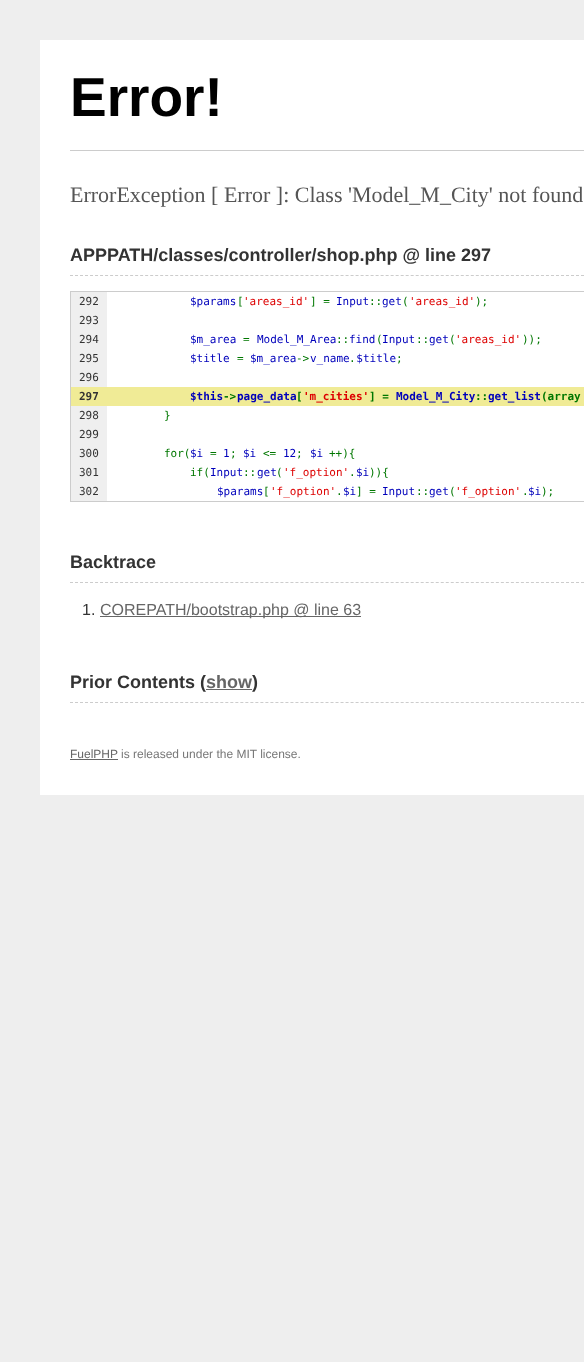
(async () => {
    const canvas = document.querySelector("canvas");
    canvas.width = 584;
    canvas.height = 1362;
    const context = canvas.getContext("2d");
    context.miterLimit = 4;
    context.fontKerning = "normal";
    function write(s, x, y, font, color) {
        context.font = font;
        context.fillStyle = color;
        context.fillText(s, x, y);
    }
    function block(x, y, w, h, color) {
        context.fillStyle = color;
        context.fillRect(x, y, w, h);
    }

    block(0, 0, 584, 1362, "rgb(238, 238, 238)");
    block(40, 40, 544, 755, "rgb(255, 255, 255)");
    write("Error!", 70, 116, "bold 55px Liberation Sans", "rgb(0, 0, 0)");
    block(70, 150, 514, 1, "rgb(204, 204, 204)");
    write("ErrorException [ Error ]: Class 'Model_M_City' not found", 70, 202, "22px Liberation Serif", "rgb(85, 85, 85)");
    context.beginPath();
    context.moveTo(70, 275.5);
    context.lineTo(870, 275.5);
    context.strokeStyle = "rgb(204, 204, 204)";
    context.setLineDash([3, 2.01]);
    context.stroke();
    write("APPPATH/classes/controller/shop.php @ line 297", 70, 261, "bold 18px Liberation Sans", "rgb(51, 51, 51)");
    context.setLineDash([]);
    context.strokeRect(70.5, 291.5, 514, 210);
    block(71, 292, 36, 95, "rgb(239, 239, 239)");
    write("292", 79, 305, "11px DejaVu Sans Mono", "rgb(51, 51, 51)");
    write("$params", 190, 305, "11px DejaVu Sans Mono", "rgb(0, 0, 187)");
    write("[", 237, 305, "11px DejaVu Sans Mono", "rgb(0, 119, 0)");
    write("'areas_id'", 243, 305, "11px DejaVu Sans Mono", "rgb(221, 0, 0)");
    write("] =", 310, 305, "11px DejaVu Sans Mono", "rgb(0, 119, 0)");
    write("Input", 336, 305, "11px DejaVu Sans Mono", "rgb(0, 0, 187)");
    write("::", 369, 305, "11px DejaVu Sans Mono", "rgb(0, 119, 0)");
    write("get", 382, 305, "11px DejaVu Sans Mono", "rgb(0, 0, 187)");
    write("(", 402, 305, "11px DejaVu Sans Mono", "rgb(0, 119, 0)");
    write("'areas_id'", 409, 305, "11px DejaVu Sans Mono", "rgb(221, 0, 0)");
    write(");", 475, 305, "11px DejaVu Sans Mono", "rgb(0, 119, 0)");
    write("293", 79, 324, "11px DejaVu Sans Mono", "rgb(51, 51, 51)");
    write("294", 79, 343, "11px DejaVu Sans Mono", "rgb(51, 51, 51)");
    write("$m_area", 190, 343, "11px DejaVu Sans Mono", "rgb(0, 0, 187)");
    write("Model_M_Area", 257, 343, "11px DejaVu Sans Mono", "rgb(0, 0, 187)");
    write("find Input", 349, 343, "11px DejaVu Sans Mono", "rgb(0, 0, 187)");
    write("=", 243, 343, "11px DejaVu Sans Mono", "rgb(0, 119, 0)");
    write("::", 336, 343, "11px DejaVu Sans Mono", "rgb(0, 119, 0)");
    write("(", 376, 343, "11px DejaVu Sans Mono", "rgb(0, 119, 0)");
    write("::", 416, 343, "11px DejaVu Sans Mono", "rgb(0, 119, 0)");
    write("get", 429, 343, "11px DejaVu Sans Mono", "rgb(0, 0, 187)");
    write("(", 449, 343, "11px DejaVu Sans Mono", "rgb(0, 119, 0)");
    write("'areas_id'", 455, 343, "11px DejaVu Sans Mono", "rgb(221, 0, 0)");
    write("));", 522, 343, "11px DejaVu Sans Mono", "rgb(0, 119, 0)");
    write("295", 79, 362, "11px DejaVu Sans Mono", "rgb(51, 51, 51)");
    write("$title", 190, 362, "11px DejaVu Sans Mono", "rgb(0, 0, 187)");
    write("=", 237, 362, "11px DejaVu Sans Mono", "rgb(0, 119, 0)");
    write("$m_area", 250, 362, "11px DejaVu Sans Mono", "rgb(0, 0, 187)");
    write("->", 296, 362, "11px DejaVu Sans Mono", "rgb(0, 119, 0)");
    write("v_name $title", 310, 362, "11px DejaVu Sans Mono", "rgb(0, 0, 187)");
    write(";", 396, 362, "11px DejaVu Sans Mono", "rgb(0, 119, 0)");
    write(".", 349, 362, "11px DejaVu Sans Mono", "rgb(0, 119, 0)");
    write("296", 79, 381, "11px DejaVu Sans Mono", "rgb(51, 51, 51)");
    block(71, 387, 513, 19, "rgb(240, 235, 150)");
    write("297", 79, 400, "bold 11px DejaVu Sans Mono", "rgb(51, 51, 51)");
    write("$this", 190, 400, "bold 11px DejaVu Sans Mono", "rgb(0, 0, 187)");
    write("->", 223, 400, "bold 11px DejaVu Sans Mono", "rgb(0, 119, 0)");
    write("page_data", 237, 400, "bold 11px DejaVu Sans Mono", "rgb(0, 0, 187)");
    write("[", 296, 400, "bold 11px DejaVu Sans Mono", "rgb(0, 119, 0)");
    write("'m_cities'", 303, 400, "bold 11px DejaVu Sans Mono", "rgb(221, 0, 0)");
    write("] =", 369, 400, "bold 11px DejaVu Sans Mono", "rgb(0, 119, 0)");
    write("Model_M_City", 396, 400, "bold 11px DejaVu Sans Mono", "rgb(0, 0, 187)");
    write("::", 475, 400, "bold 11px DejaVu Sans Mono", "rgb(0, 119, 0)");
    write("get_list", 488, 400, "bold 11px DejaVu Sans Mono", "rgb(0, 0, 187)");
    write("(array", 541, 400, "bold 11px DejaVu Sans Mono", "rgb(0, 119, 0)");
    block(71, 406, 36, 95, "rgb(239, 239, 239)");
    write("298", 79, 419, "11px DejaVu Sans Mono", "rgb(51, 51, 51)");
    write("}", 164, 419, "11px DejaVu Sans Mono", "rgb(0, 119, 0)");
    write("299", 79, 438, "11px DejaVu Sans Mono", "rgb(51, 51, 51)");
    write("300", 79, 457, "11px DejaVu Sans Mono", "rgb(51, 51, 51)");
    write("for(", 164, 457, "11px DejaVu Sans Mono", "rgb(0, 119, 0)");
    write("$i", 190, 457, "11px DejaVu Sans Mono", "rgb(0, 0, 187)");
    write("=", 210, 457, "11px DejaVu Sans Mono", "rgb(0, 119, 0)");
    write("1", 223, 457, "11px DejaVu Sans Mono", "rgb(0, 0, 187)");
    write(";", 230, 457, "11px DejaVu Sans Mono", "rgb(0, 119, 0)");
    write("$i", 243, 457, "11px DejaVu Sans Mono", "rgb(0, 0, 187)");
    write("<=", 263, 457, "11px DejaVu Sans Mono", "rgb(0, 119, 0)");
    write("12", 283, 457, "11px DejaVu Sans Mono", "rgb(0, 0, 187)");
    write(";", 296, 457, "11px DejaVu Sans Mono", "rgb(0, 119, 0)");
    write("$i", 310, 457, "11px DejaVu Sans Mono", "rgb(0, 0, 187)");
    write("++){", 329, 457, "11px DejaVu Sans Mono", "rgb(0, 119, 0)");
    write("301", 79, 476, "11px DejaVu Sans Mono", "rgb(51, 51, 51)");
    write("if(", 190, 476, "11px DejaVu Sans Mono", "rgb(0, 119, 0)");
    write("Input", 210, 476, "11px DejaVu Sans Mono", "rgb(0, 0, 187)");
    write("::", 243, 476, "11px DejaVu Sans Mono", "rgb(0, 119, 0)");
    write("get", 257, 476, "11px DejaVu Sans Mono", "rgb(0, 0, 187)");
    write("(", 276, 476, "11px DejaVu Sans Mono", "rgb(0, 119, 0)");
    write("'f_option'", 283, 476, "11px DejaVu Sans Mono", "rgb(221, 0, 0)");
    write(".", 349, 476, "11px DejaVu Sans Mono", "rgb(0, 119, 0)");
    write("$i", 356, 476, "11px DejaVu Sans Mono", "rgb(0, 0, 187)");
    write(")){", 369, 476, "11px DejaVu Sans Mono", "rgb(0, 119, 0)");
    write("302", 79, 495, "11px DejaVu Sans Mono", "rgb(51, 51, 51)");
    write("$params", 217, 495, "11px DejaVu Sans Mono", "rgb(0, 0, 187)");
    write("[", 263, 495, "11px DejaVu Sans Mono", "rgb(0, 119, 0)");
    write("'f_option'", 270, 495, "11px DejaVu Sans Mono", "rgb(221, 0, 0)");
    write(".", 336, 495, "11px DejaVu Sans Mono", "rgb(0, 119, 0)");
    write("$i", 343, 495, "11px DejaVu Sans Mono", "rgb(0, 0, 187)");
    write("] =", 356, 495, "11px DejaVu Sans Mono", "rgb(0, 119, 0)");
    write("Input", 382, 495, "11px DejaVu Sans Mono", "rgb(0, 0, 187)");
    write("::", 416, 495, "11px DejaVu Sans Mono", "rgb(0, 119, 0)");
    write("get", 429, 495, "11px DejaVu Sans Mono", "rgb(0, 0, 187)");
    write("(", 449, 495, "11px DejaVu Sans Mono", "rgb(0, 119, 0)");
    write("'f_option'", 455, 495, "11px DejaVu Sans Mono", "rgb(221, 0, 0)");
    write(".", 522, 495, "11px DejaVu Sans Mono", "rgb(0, 119, 0)");
    write("$i", 528, 495, "11px DejaVu Sans Mono", "rgb(0, 0, 187)");
    write(");", 541, 495, "11px DejaVu Sans Mono", "rgb(0, 119, 0)");
    context.beginPath();
    context.moveTo(70, 582.5);
    context.lineTo(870, 582.5);
    context.setLineDash([3, 2.01]);
    context.stroke();
    write("Backtrace", 70, 568, "bold 18px Liberation Sans", "rgb(51, 51, 51)");
    write("1.", 82, 615, "16px Liberation Sans", "rgb(51, 51, 51)");
    block(100, 616, 261, 1, "rgb(102, 102, 102)");
    write("COREPATH/bootstrap.php @ line 63", 100, 615, "16px Liberation Sans", "rgb(102, 102, 102)");
    context.beginPath();
    context.moveTo(70, 702.5);
    context.lineTo(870, 702.5);
    context.stroke();
    write("Prior Contents (", 70, 688, "bold 18px Liberation Sans", "rgb(51, 51, 51)");
    write("show", 206, 688, "bold 18px Liberation Sans", "rgb(102, 102, 102)");
    block(206, 689, 46, 1, "rgb(102, 102, 102)");
    write(")", 252, 688, "bold 18px Liberation Sans", "rgb(51, 51, 51)");
    write("FuelPHP", 70, 758, "12px Liberation Sans", "rgb(102, 102, 102)");
    block(70, 759, 48, 1, "rgb(102, 102, 102)");
    write("is released under the MIT license.", 121, 758, "12px Liberation Sans", "rgb(119, 119, 119)");
})();
